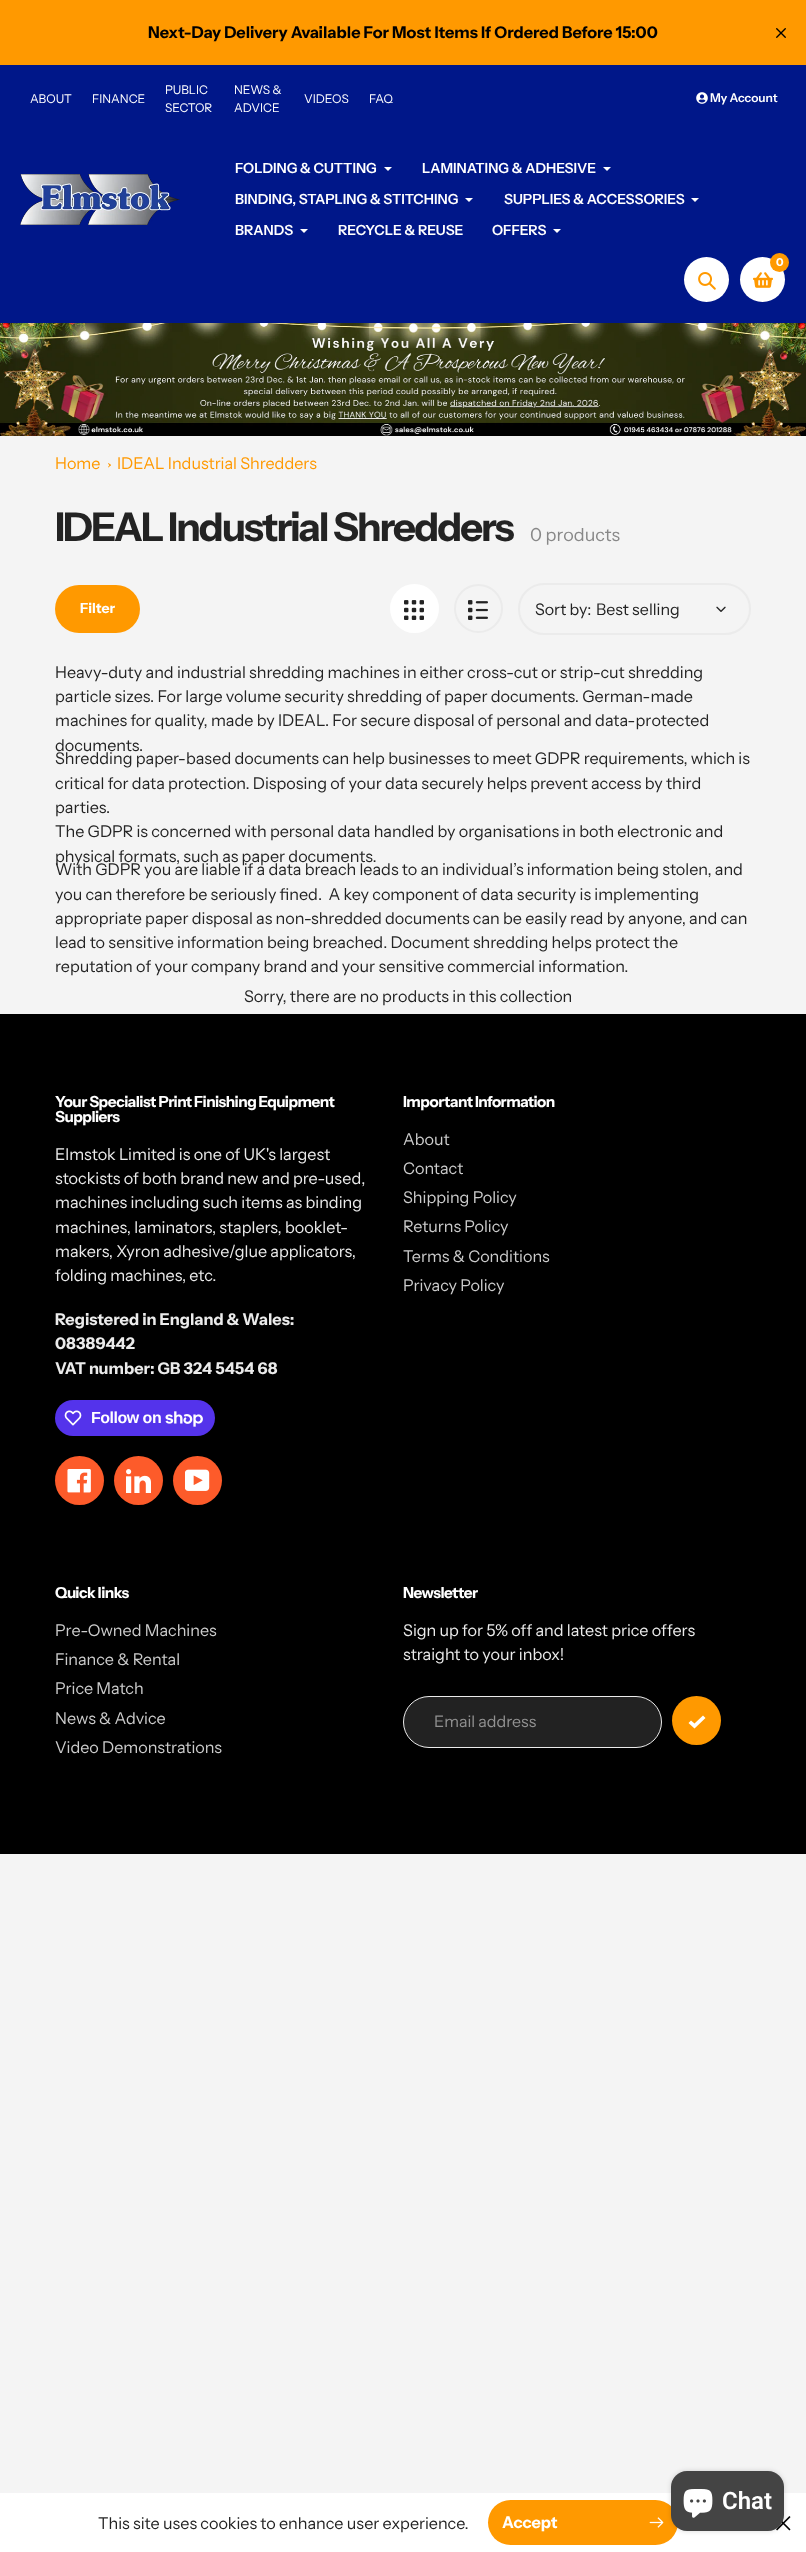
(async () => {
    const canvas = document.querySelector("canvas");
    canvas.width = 806;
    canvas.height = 2552;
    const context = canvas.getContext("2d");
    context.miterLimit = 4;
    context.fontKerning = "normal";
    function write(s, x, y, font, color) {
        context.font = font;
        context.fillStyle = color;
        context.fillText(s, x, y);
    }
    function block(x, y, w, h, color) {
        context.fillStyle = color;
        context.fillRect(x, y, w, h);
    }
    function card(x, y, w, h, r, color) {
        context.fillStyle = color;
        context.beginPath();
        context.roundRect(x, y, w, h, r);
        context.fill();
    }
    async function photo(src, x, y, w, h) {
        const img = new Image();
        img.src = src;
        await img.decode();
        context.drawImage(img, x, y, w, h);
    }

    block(0, 0, 806, 2552, "rgb(244, 244, 244)");
    block(0, 0, 806, 65, "rgb(255, 153, 0)");
    write("Next-Day Delivery Available For Most Items If Ordered Before 15:00", 148, 38, "bold 16.2px Instrument Sans", "rgb(0, 0, 0)");
    await photo("media/1.png", 776, 28, 10, 10);
    block(0, 65, 806, 258, "rgb(0, 23, 137)");
    write("ABOUT", 30, 103, "12px Instrument Sans", "rgb(255, 255, 255)");
    write("FINANCE", 92, 103, "12px Instrument Sans", "rgb(255, 255, 255)");
    write("PUBLIC", 165, 94, "12px Instrument Sans", "rgb(255, 255, 255)");
    write("SECTOR", 165, 112, "12px Instrument Sans", "rgb(255, 255, 255)");
    write("NEWS &", 234, 94, "12px Instrument Sans", "rgb(255, 255, 255)");
    write("ADVICE", 234, 112, "12px Instrument Sans", "rgb(255, 255, 255)");
    write("VIDEOS", 304, 103, "12px Instrument Sans", "rgb(255, 255, 255)");
    write("FAQ", 369, 103, "12px Instrument Sans", "rgb(255, 255, 255)");
    await photo("media/2.png", 696, 92, 12, 12);
    write("My Account", 710, 102, "600 12px Instrument Sans", "rgb(255, 255, 255)");
    await photo("media/3.png", 20, 174, 160, 51);
    write("FOLDING & CUTTING", 235, 173, "600 14px Instrument Sans", "rgb(255, 255, 255)");
    context.beginPath();
    context.moveTo(392, 167);
    context.lineTo(388, 171);
    context.lineTo(384, 167);
    context.fill();
    write("LAMINATING & ADHESIVE", 422, 173, "600 14px Instrument Sans", "rgb(255, 255, 255)");
    context.beginPath();
    context.moveTo(611, 167);
    context.lineTo(607, 171);
    context.lineTo(603, 167);
    context.fill();
    write("BINDING, STAPLING & STITCHING", 235, 204, "600 14px Instrument Sans", "rgb(255, 255, 255)");
    context.beginPath();
    context.moveTo(473, 198);
    context.lineTo(469, 202);
    context.lineTo(465, 198);
    context.fill();
    write("SUPPLIES & ACCESSORIES", 504, 204, "600 14px Instrument Sans", "rgb(255, 255, 255)");
    context.beginPath();
    context.moveTo(699, 198);
    context.lineTo(695, 202);
    context.lineTo(691, 198);
    context.fill();
    write("BRANDS", 235, 235, "600 14px Instrument Sans", "rgb(255, 255, 255)");
    context.beginPath();
    context.moveTo(308, 229);
    context.lineTo(304, 233);
    context.lineTo(300, 229);
    context.fill();
    write("RECYCLE & REUSE", 338, 235, "600 14px Instrument Sans", "rgb(255, 255, 255)");
    write("OFFERS", 492, 235, "600 14px Instrument Sans", "rgb(255, 255, 255)");
    context.beginPath();
    context.moveTo(561, 229);
    context.lineTo(557, 233);
    context.lineTo(553, 229);
    context.fill();
    context.beginPath();
    context.arc(706.5, 279.5, 22.5, 0, Math.PI * 2);
    context.fill();
    await photo("media/4.png", 698, 272, 18, 18);
    context.beginPath();
    context.arc(762.5, 279.5, 22.5, 0, Math.PI * 2);
    context.fill();
    context.fillStyle = "rgb(255, 153, 0)";
    context.beginPath();
    context.arc(779.5, 262.5, 9.5, 0, Math.PI * 2);
    context.fill();
    write("0", 776, 266, "bold 11px Instrument Sans", "rgb(255, 255, 255)");
    await photo("media/5.png", 753, 272, 20, 16);
    await photo("media/6.png", 0, 323, 806, 113);
    write("Home", 55, 469, "16.2px Instrument Sans", "rgb(255, 153, 0)");
    context.beginPath();
    context.moveTo(108.5, 463);
    context.lineTo(111, 465);
    context.lineTo(110, 466);
    context.lineTo(108, 463.5);
    context.closePath();
    context.fill();
    context.beginPath();
    context.moveTo(110, 464.5);
    context.lineTo(111, 465);
    context.lineTo(108.5, 467.5);
    context.lineTo(108, 467);
    context.closePath();
    context.fill();
    write("IDEAL Industrial Shredders", 117, 469, "16.2px Instrument Sans", "rgb(255, 153, 0)");
    context.letterSpacing = "-2px";
    write("IDEAL Industrial Shredders", 55, 541, "bold 39.75px Instrument Sans", "rgb(35, 35, 35)");
    context.letterSpacing = "0px";
    write("0 products", 530, 541, "18px Instrument Sans", "rgb(136, 136, 136)");
    card(55, 585, 85, 48, 24, "rgb(255, 153, 0)");
    write("Filter", 80, 613, "bold 14px Instrument Sans", "rgb(255, 255, 255)");
    context.beginPath();
    context.arc(414.5, 608.5, 24.5, 0, Math.PI * 2);
    context.fill();
    await photo("media/7.png", 404, 600, 20, 20);
    context.beginPath();
    context.arc(478.5, 608.5, 23.5, 0, Math.PI * 2);
    context.strokeStyle = "rgb(235, 235, 235)";
    context.lineWidth = 2;
    context.stroke();
    await photo("media/8.png", 468, 600, 20, 20);
    context.beginPath();
    context.roundRect(519, 584, 231, 50, 25);
    context.stroke();
    write("Sort by:", 535, 615, "16px Instrument Sans", "rgb(35, 35, 35)");
    write("Best selling", 596, 615, "16px Instrument Sans", "rgb(35, 35, 35)");
    await photo("media/9.png", 716, 606, 10, 6);
    write("Heavy-duty and industrial shredding machines in either cross-cut or strip-cut shredding", 55, 678, "16.2px Instrument Sans", "rgb(35, 35, 35)");
    write("particle sizes. For large volume security shredding of paper documents. German-made", 55, 702, "16.2px Instrument Sans", "rgb(35, 35, 35)");
    write("machines for quality, made by IDEAL. For secure disposal of personal and data-protected", 55, 726, "16.2px Instrument Sans", "rgb(35, 35, 35)");
    write("documents.", 55, 751, "16.2px Instrument Sans", "rgb(35, 35, 35)");
    write("Shredding paper-based documents can help businesses to meet GDPR requirements, which is", 55, 764, "16.2px Instrument Sans", "rgb(35, 35, 35)");
    write("critical for data protection. Disposing of your data securely helps prevent access by third", 55, 789, "16.2px Instrument Sans", "rgb(35, 35, 35)");
    write("parties.", 55, 813, "16.2px Instrument Sans", "rgb(35, 35, 35)");
    write("The GDPR is concerned with personal data handled by organisations in both electronic and", 55, 837, "16.2px Instrument Sans", "rgb(35, 35, 35)");
    write("physical formats, such as paper documents.", 55, 862, "16.2px Instrument Sans", "rgb(35, 35, 35)");
    write("With GDPR you are liable if a data breach leads to an individual’s information being stolen, and", 55, 875, "16.2px Instrument Sans", "rgb(35, 35, 35)");
    write("you can therefore be seriously fined.  A key component of data security is implementing", 55, 900, "16.2px Instrument Sans", "rgb(35, 35, 35)");
    write("appropriate paper disposal as non-shredded documents can be easily read by anyone, and can", 55, 924, "16.2px Instrument Sans", "rgb(35, 35, 35)");
    write("lead to sensitive information being breached. Document shredding helps protect the", 55, 948, "16.2px Instrument Sans", "rgb(35, 35, 35)");
    write("reputation of your company brand and your sensitive commercial information.", 55, 972, "16.2px Instrument Sans", "rgb(35, 35, 35)");
    write("Sorry, there are no products in this collection", 244, 1002, "16.2px Instrument Sans", "rgb(35, 35, 35)");
    block(0, 1014, 806, 840, "rgb(0, 0, 0)");
    context.letterSpacing = "-0.5px";
    write("Your Specialist Print Finishing Equipment", 55, 1107, "bold 15.25px Instrument Sans", "rgb(255, 255, 255)");
    write("Suppliers", 55, 1122, "bold 15.25px Instrument Sans", "rgb(255, 255, 255)");
    context.letterSpacing = "0px";
    write("Elmstok Limited is one of UK's largest", 55, 1160, "16.2px Instrument Sans", "rgb(235, 235, 235)");
    write("stockists of both brand new and pre-used,", 55, 1184, "16.2px Instrument Sans", "rgb(235, 235, 235)");
    write("machines including such items as binding", 55, 1208, "16.2px Instrument Sans", "rgb(235, 235, 235)");
    write("machines, laminators, staplers, booklet-", 55, 1233, "16.2px Instrument Sans", "rgb(235, 235, 235)");
    write("makers, Xyron adhesive/glue applicators,", 55, 1257, "16.2px Instrument Sans", "rgb(235, 235, 235)");
    write("folding machines, etc.", 55, 1281, "16.2px Instrument Sans", "rgb(235, 235, 235)");
    write("Registered in England & Wales:", 55, 1325, "bold 16.2px Instrument Sans", "rgb(235, 235, 235)");
    write("08389442", 55, 1349, "bold 16.2px Instrument Sans", "rgb(235, 235, 235)");
    write("VAT number: GB 324 5454 68", 55, 1374, "bold 16.2px Instrument Sans", "rgb(235, 235, 235)");
    card(55, 1400, 160, 36, 18, "rgb(84, 51, 235)");
    await photo("media/10.png", 64, 1410, 18, 16);
    context.letterSpacing = "-0.5px";
    write("Follow on", 91, 1423, "bold 16px Liberation Sans", "rgb(255, 255, 255)");
    await photo("media/11.png", 165, 1411, 38, 16);
    context.fillStyle = "rgb(253, 91, 42)";
    context.beginPath();
    context.arc(79.5, 1480.5, 24.5, 0, Math.PI * 2);
    context.fill();
    await photo("media/12.png", 67, 1469, 24, 24);
    context.beginPath();
    context.arc(138.5, 1480.5, 24.5, 0, Math.PI * 2);
    context.fill();
    await photo("media/13.png", 126, 1469, 25, 24);
    context.beginPath();
    context.arc(197.5, 1480.5, 24.5, 0, Math.PI * 2);
    context.fill();
    await photo("media/14.png", 185, 1469, 25, 22);
    write("Important Information", 403, 1107, "bold 15.25px Instrument Sans", "rgb(255, 255, 255)");
    context.letterSpacing = "0px";
    write("About", 403, 1145, "16.2px Instrument Sans", "rgb(204, 204, 204)");
    write("Contact", 403, 1174, "16.2px Instrument Sans", "rgb(204, 204, 204)");
    write("Shipping Policy", 403, 1203, "16.2px Instrument Sans", "rgb(204, 204, 204)");
    write("Returns Policy", 403, 1232, "16.2px Instrument Sans", "rgb(204, 204, 204)");
    write("Terms & Conditions", 403, 1262, "16.2px Instrument Sans", "rgb(204, 204, 204)");
    write("Privacy Policy", 403, 1291, "16.2px Instrument Sans", "rgb(204, 204, 204)");
    context.letterSpacing = "-0.5px";
    write("Quick links", 55, 1598, "bold 15.25px Instrument Sans", "rgb(255, 255, 255)");
    context.letterSpacing = "0px";
    write("Pre-Owned Machines", 55, 1636, "16.2px Instrument Sans", "rgb(204, 204, 204)");
    write("Finance & Rental", 55, 1665, "16.2px Instrument Sans", "rgb(204, 204, 204)");
    write("Price Match", 55, 1694, "16.2px Instrument Sans", "rgb(204, 204, 204)");
    write("News & Advice", 55, 1724, "16.2px Instrument Sans", "rgb(204, 204, 204)");
    write("Video Demonstrations", 55, 1753, "16.2px Instrument Sans", "rgb(204, 204, 204)");
    context.letterSpacing = "-0.5px";
    write("Newsletter", 403, 1598, "bold 15.25px Instrument Sans", "rgb(255, 255, 255)");
    context.letterSpacing = "0px";
    write("Sign up for 5% off and latest price offers", 403, 1636, "16.2px Instrument Sans", "rgb(235, 235, 235)");
    write("straight to your inbox!", 403, 1660, "16.2px Instrument Sans", "rgb(235, 235, 235)");
    context.fillStyle = "rgb(34, 34, 34)";
    context.beginPath();
    context.roundRect(403.5, 1696.5, 258, 51, 25.5);
    context.fill();
    context.lineWidth = 1;
    context.stroke();
    write("Email address", 434, 1727, "16px Instrument Sans", "rgb(145, 145, 145)");
    context.fillStyle = "rgb(255, 153, 0)";
    context.beginPath();
    context.arc(696.5, 1720.5, 24.5, 0, Math.PI * 2);
    context.fill();
    context.fillStyle = "rgb(255, 255, 255)";
    context.beginPath();
    context.moveTo(694.5, 1728.5);
    context.lineTo(688.5, 1723);
    context.lineTo(691, 1720.5);
    context.lineTo(694.5, 1723.5);
    context.lineTo(703, 1715.5);
    context.lineTo(705.5, 1718);
    context.closePath();
    context.fill();
    block(0, 2493, 806, 59, "rgb(255, 255, 255)");
    card(488, 2500, 190, 45, 22.5, "rgb(255, 153, 0)");
    await photo("media/16.png", 649, 2517, 15, 11);
    await photo("media/17.png", 776, 2516, 15, 15);
    context.fillStyle = "rgba(0, 0, 0, 0.15)";
    context.filter = "blur(2.5px)";
    context.beginPath();
    context.roundRect(671, 2471, 113, 60, 16);
    context.fill();
    context.filter = "none";
    card(671, 2471, 113, 60, 16, "rgb(68, 68, 68)");
    await photo("media/15.png", 683, 2489, 30, 29);
    write("Chat", 722, 2509, "600 24px Roboto", "rgb(255, 255, 255)");
    write("This site uses cookies to enhance user experience.", 98, 2529, "16.2px Instrument Sans", "rgb(35, 35, 35)");
    write("Accept", 502, 2528, "bold 16.2px Instrument Sans", "rgb(255, 255, 255)");
})();
